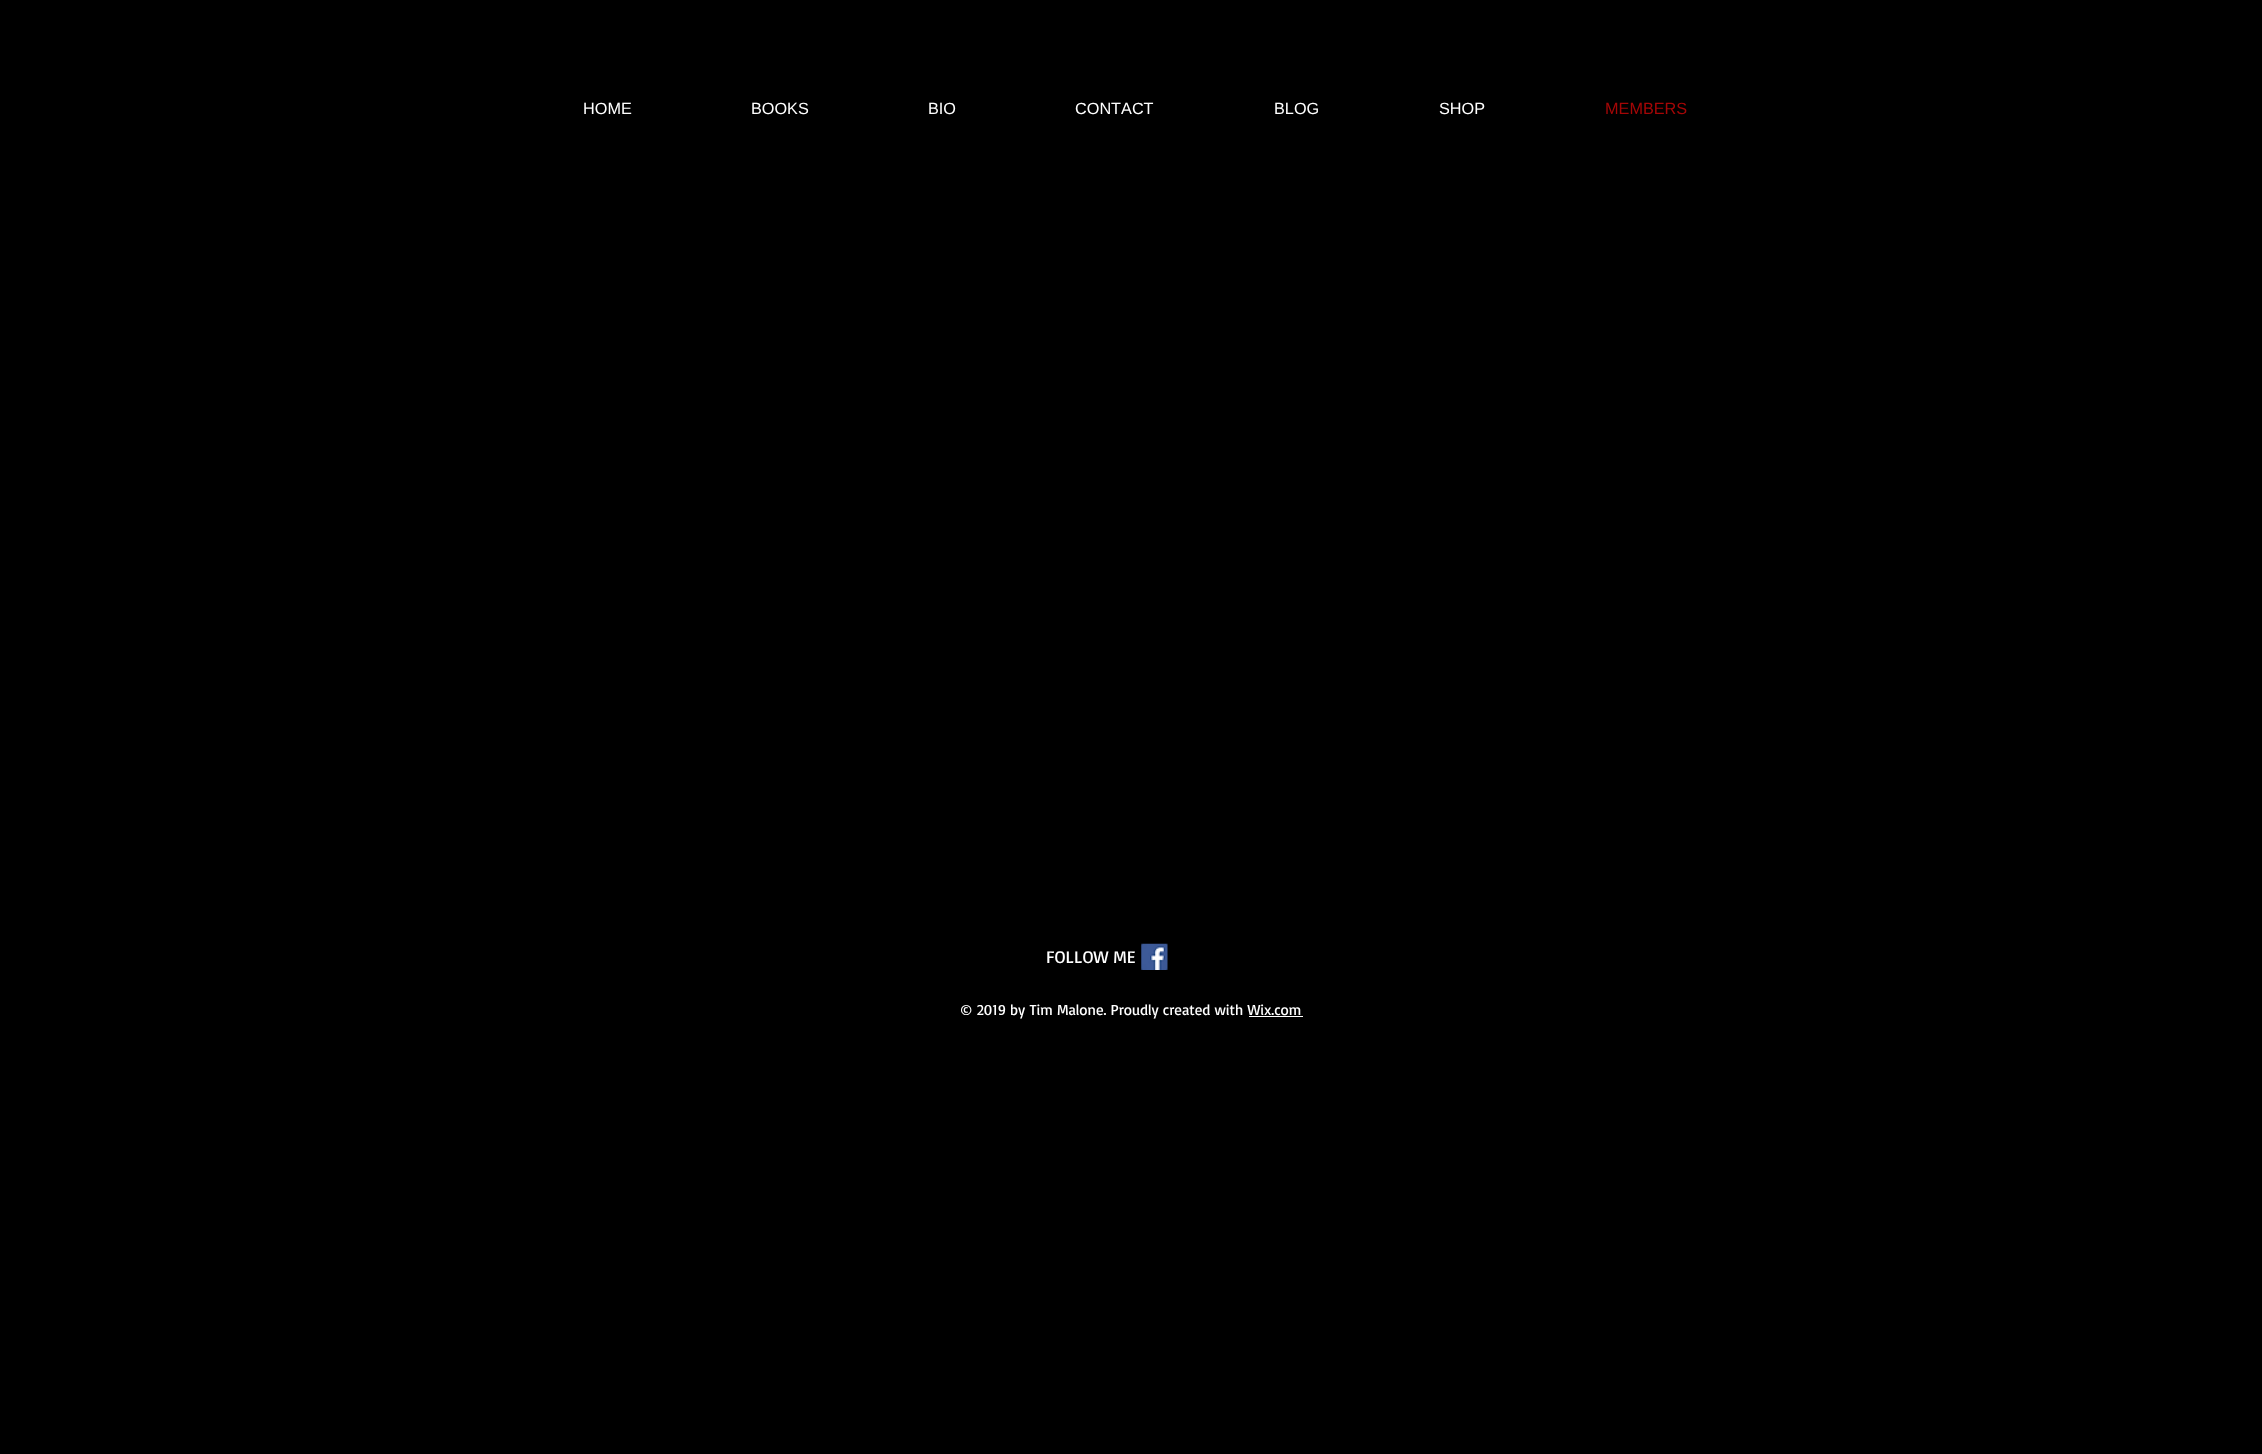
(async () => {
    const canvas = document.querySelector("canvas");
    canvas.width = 2262;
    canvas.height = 1454;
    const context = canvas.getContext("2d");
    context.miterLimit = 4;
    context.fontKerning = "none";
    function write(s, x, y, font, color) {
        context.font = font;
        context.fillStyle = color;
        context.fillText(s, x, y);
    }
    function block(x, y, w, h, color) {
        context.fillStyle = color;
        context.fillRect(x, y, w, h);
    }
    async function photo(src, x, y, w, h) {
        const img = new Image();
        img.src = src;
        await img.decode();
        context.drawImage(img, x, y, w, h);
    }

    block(0, 0, 2262, 1454, "rgb(0, 0, 0)");
    write("HOME", 583, 114, "16.25px Liberation Sans", "rgb(255, 255, 255)");
    write("BOOKS", 751, 114, "16.25px Liberation Sans", "rgb(255, 255, 255)");
    write("BIO", 928, 114, "16.25px Liberation Sans", "rgb(255, 255, 255)");
    write("CONTACT", 1075, 114, "16.25px Liberation Sans", "rgb(255, 255, 255)");
    write("BLOG", 1274, 114, "16.25px Liberation Sans", "rgb(255, 255, 255)");
    write("SHOP", 1439, 114, "16.25px Liberation Sans", "rgb(255, 255, 255)");
    write("MEMBERS", 1605, 114, "16.25px Liberation Sans", "rgb(164, 6, 6)");
    write("FOLLOW ME", 1046, 963, "17.5px Basic", "rgb(255, 255, 255)");
    await photo("media/1.png", 1141, 943, 27, 27);
    write("© 2019 by Tim Malone. Proudly created with Wix.com", 960, 1015, "15px Basic", "rgb(255, 255, 255)");
    block(1249, 1016, 54, 1, "rgb(255, 255, 255)");
})();
